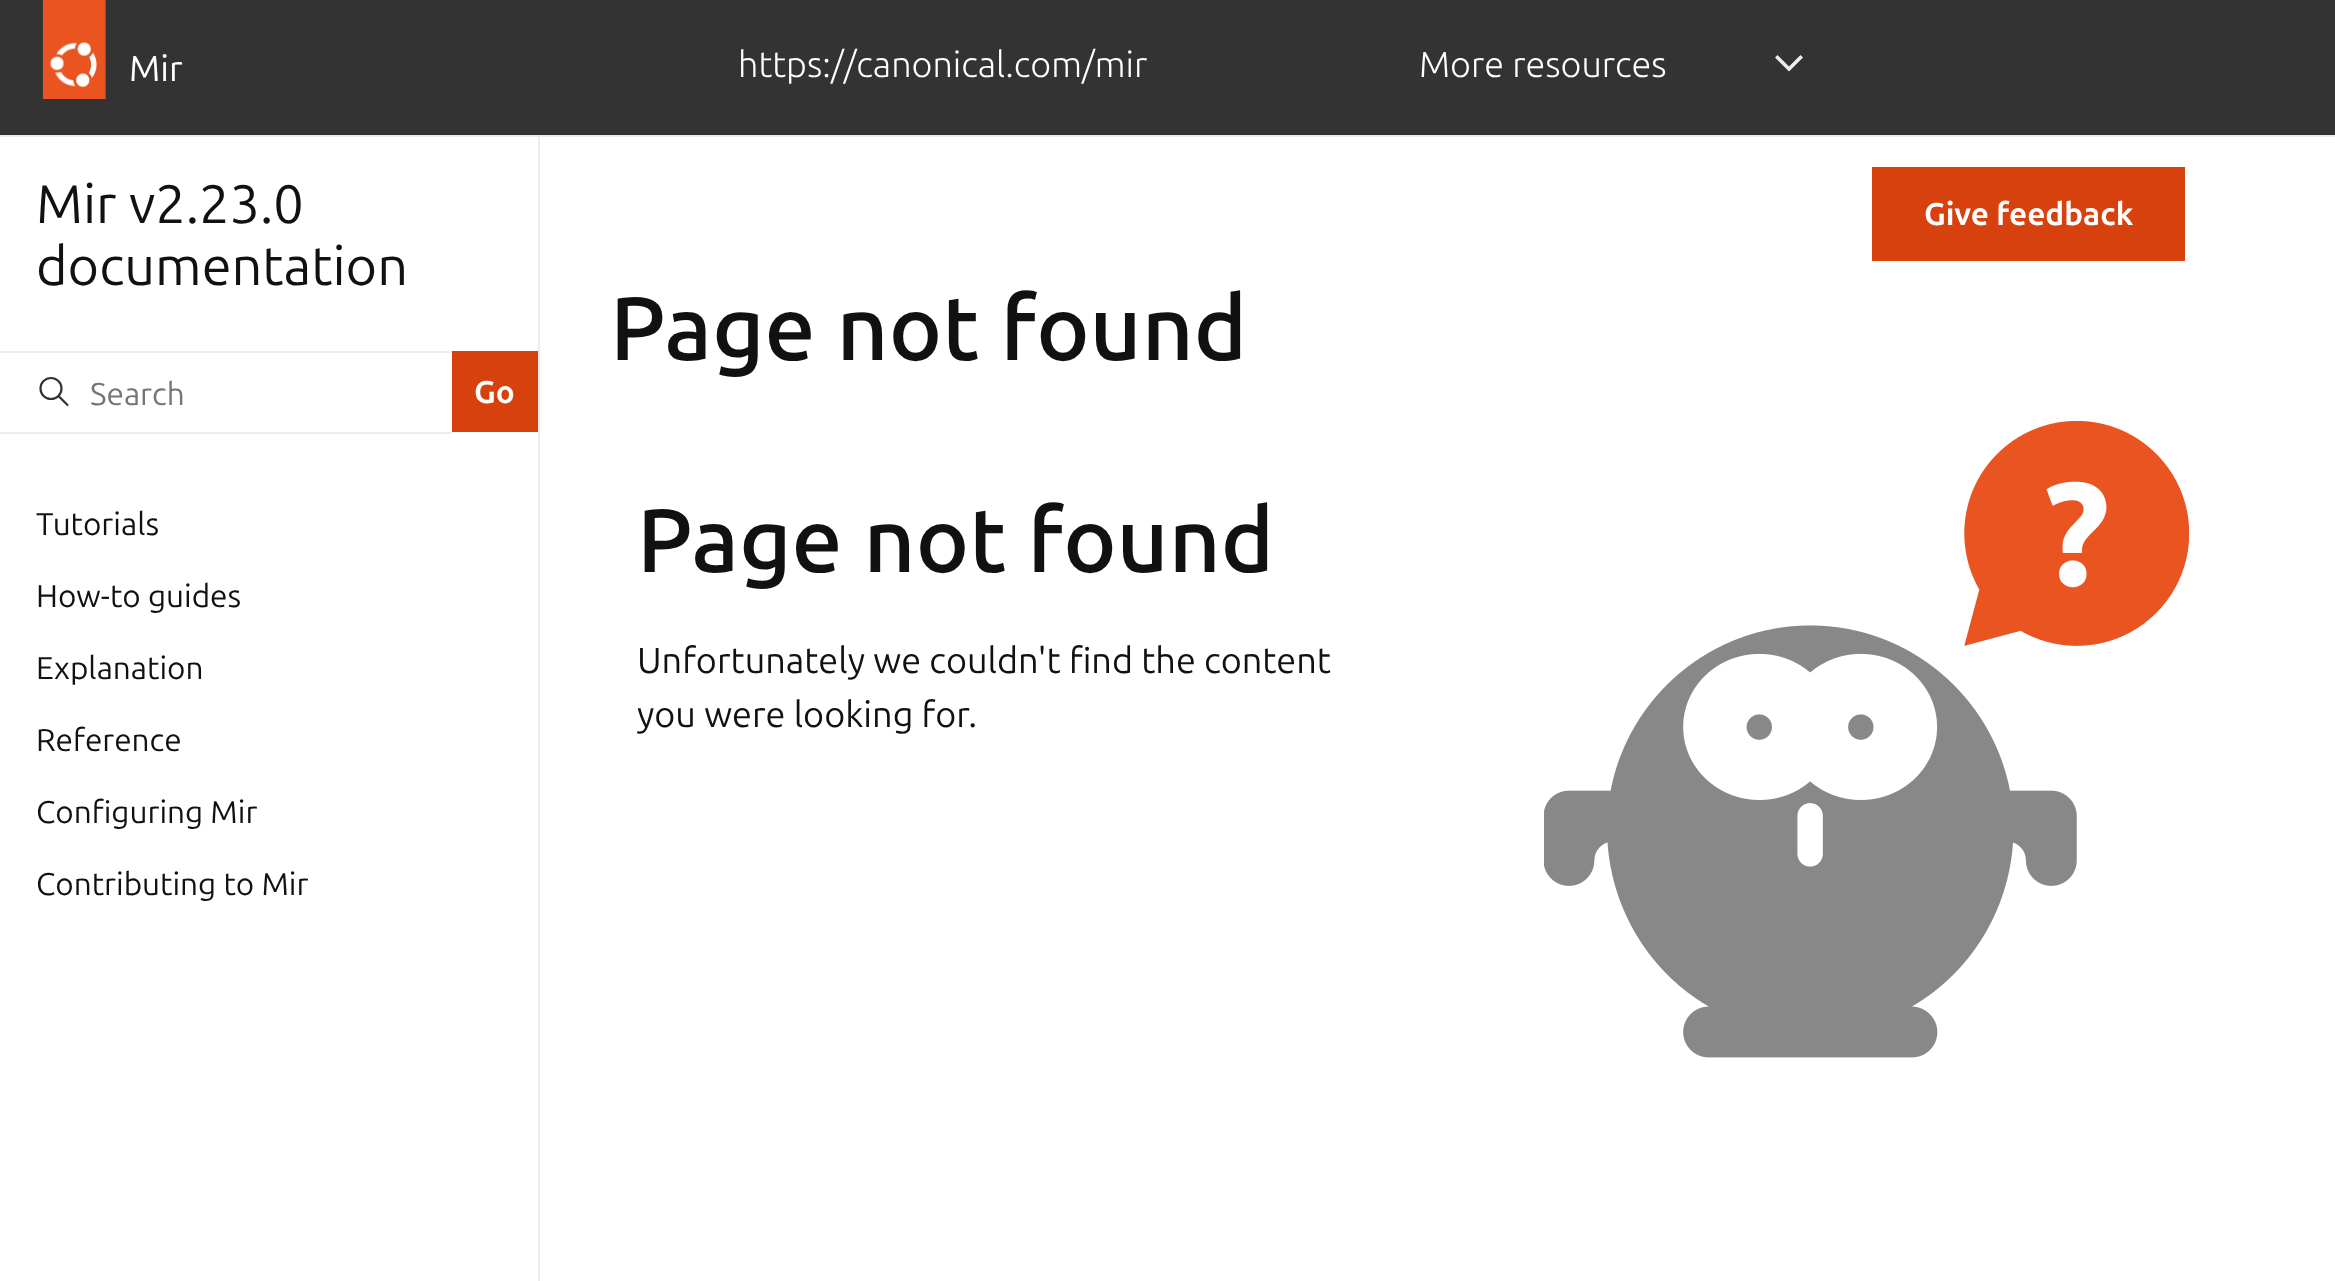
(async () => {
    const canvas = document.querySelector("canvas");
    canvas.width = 2335;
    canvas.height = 1281;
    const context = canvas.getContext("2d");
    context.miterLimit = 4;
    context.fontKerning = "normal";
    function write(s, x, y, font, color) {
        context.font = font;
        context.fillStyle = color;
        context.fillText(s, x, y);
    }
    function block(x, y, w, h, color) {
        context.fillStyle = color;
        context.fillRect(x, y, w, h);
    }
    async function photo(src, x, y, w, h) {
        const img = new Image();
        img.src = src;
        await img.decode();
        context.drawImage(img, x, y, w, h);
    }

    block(0, 0, 2335, 1281, "rgb(255, 255, 255)");
    block(0, 135, 2335, 2, "rgb(238, 235, 238)");
    block(0, 0, 2335, 135, "rgb(51, 51, 51)");
    await photo("media/1.png", 42, 0, 64, 99);
    write("Mir", 129, 81, "36px Ubuntu", "rgb(255, 255, 255)");
    write("https://canonical.com/mir", 738, 77, "300 36px Ubuntu", "rgb(255, 255, 255)");
    write("More resources", 1419, 77, "300 36px Ubuntu", "rgb(255, 255, 255)");
    context.fillStyle = "rgb(238, 238, 238)";
    context.beginPath();
    context.moveTo(1789, 71.5);
    context.lineTo(1803, 57.5);
    context.lineTo(1800.5, 55);
    context.lineTo(1789, 66.5);
    context.lineTo(1777.5, 55);
    context.lineTo(1775, 57.5);
    context.closePath();
    context.fill();
    block(538, 137, 2, 1144, "rgb(238, 235, 238)");
    write("Mir v2.23.0", 36, 223, "54px Ubuntu", "rgb(17, 17, 17)");
    write("documentation", 36, 285, "54px Ubuntu", "rgb(17, 17, 17)");
    context.beginPath();
    context.arc(51, 388.5, 10.5, 0, Math.PI * 2);
    context.strokeStyle = "rgb(51, 51, 51)";
    context.lineWidth = 2.2;
    context.stroke();
    context.beginPath();
    context.moveTo(67.5, 405);
    context.lineTo(58.5, 396);
    context.lineCap = "round";
    context.lineJoin = "round";
    context.stroke();
    block(0, 351, 452, 2, "rgb(238, 235, 238)");
    block(0, 432, 452, 2, "rgb(238, 235, 238)");
    write("Search", 90, 405, "31.5px Ubuntu", "rgb(117, 117, 117)");
    block(452, 351, 86, 81, "rgb(214, 65, 13)");
    write("Go", 474, 403, "bold 31.5px Ubuntu", "rgb(255, 255, 255)");
    write("Tutorials", 36, 535, "31.5px Ubuntu", "rgb(17, 17, 17)");
    write("How-to guides", 36, 607, "31.5px Ubuntu", "rgb(17, 17, 17)");
    write("Explanation", 36, 679, "31.5px Ubuntu", "rgb(17, 17, 17)");
    write("Reference", 36, 751, "31.5px Ubuntu", "rgb(17, 17, 17)");
    write("Configuring Mir", 36, 823, "31.5px Ubuntu", "rgb(17, 17, 17)");
    write("Contributing to Mir", 36, 895, "31.5px Ubuntu", "rgb(17, 17, 17)");
    block(1872, 167, 313, 94, "rgb(214, 65, 13)");
    write("Give feedback", 1924, 225, "bold 31.5px Ubuntu", "rgb(255, 255, 255)");
    write("Page not found", 610, 360, "500 90px Ubuntu", "rgb(17, 17, 17)");
    write("Page not found", 637, 572, "500 90px Ubuntu", "rgb(17, 17, 17)");
    write("Unfortunately we couldn't find the content", 637, 673, "36px Ubuntu", "rgb(17, 17, 17)");
    write("you were looking for.", 637, 727, "36px Ubuntu", "rgb(17, 17, 17)");
    await photo("media/2.png", 1544, 421, 645, 637);
})();
